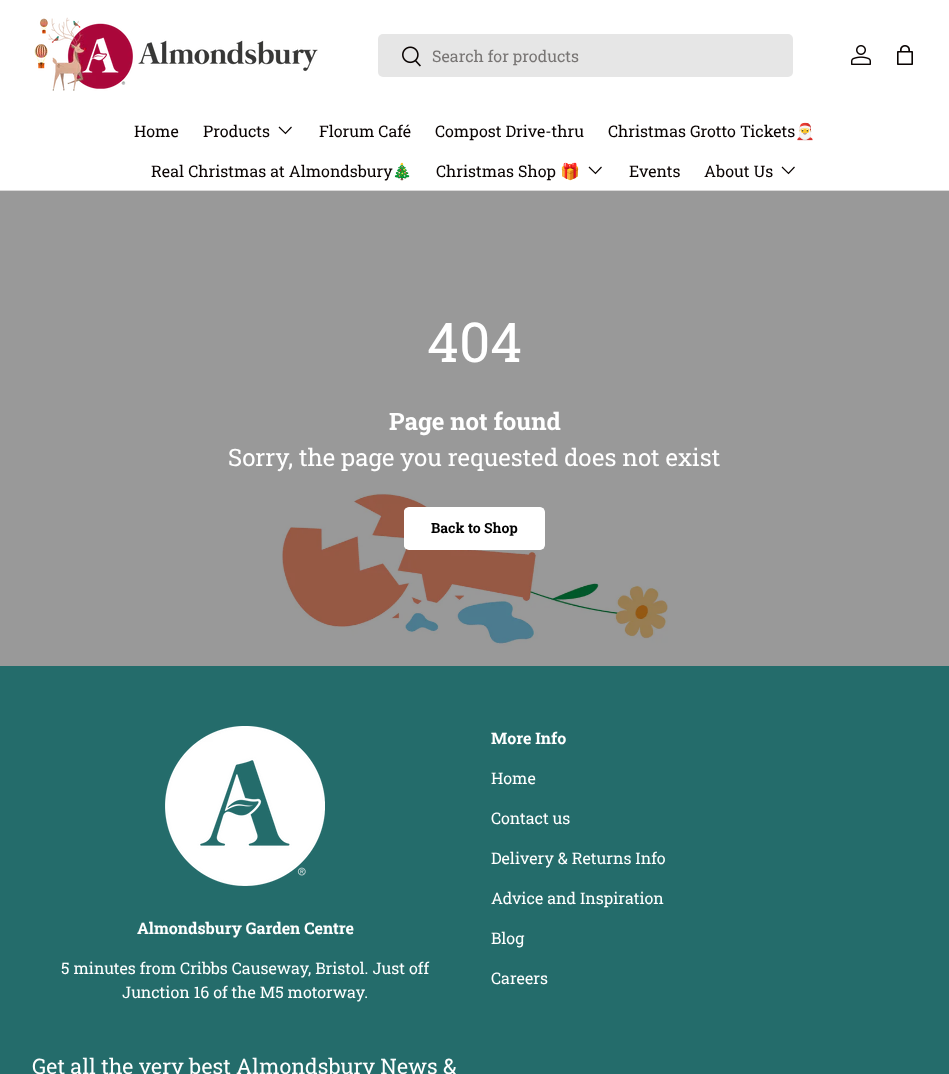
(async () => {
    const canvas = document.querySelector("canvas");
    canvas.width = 949;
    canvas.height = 1074;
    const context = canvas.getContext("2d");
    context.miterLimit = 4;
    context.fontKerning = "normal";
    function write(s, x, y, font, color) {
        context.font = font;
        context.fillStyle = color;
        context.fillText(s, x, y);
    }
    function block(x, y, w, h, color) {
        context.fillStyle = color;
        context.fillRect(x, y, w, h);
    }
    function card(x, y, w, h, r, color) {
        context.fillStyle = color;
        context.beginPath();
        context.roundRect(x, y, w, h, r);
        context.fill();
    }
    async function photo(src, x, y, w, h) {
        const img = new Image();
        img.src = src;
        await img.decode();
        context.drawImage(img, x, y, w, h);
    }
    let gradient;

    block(0, 0, 949, 1074, "rgb(255, 255, 255)");
    block(0, 191, 949, 475, "rgb(153, 153, 153)");
    block(0, 190, 949, 1, "rgb(218, 217, 217)");
    await photo("media/1.png", 34, 17, 284, 74);
    card(378, 34, 415, 43, 5, "rgb(230, 230, 230)");
    await photo("media/2.png", 402, 46, 19, 21);
    write("Search for products", 432, 62, "16px Roboto Slab", "rgb(120, 117, 116)");
    await photo("media/3.png", 851, 45, 20, 20);
    await photo("media/4.png", 897, 45, 16, 20);
    write("Home", 134, 137, "16px Roboto Slab", "rgb(9, 3, 2)");
    write("Products", 203, 137, "16px Roboto Slab", "rgb(9, 3, 2)");
    context.beginPath();
    context.moveTo(291.5, 127);
    context.lineTo(285.5, 133.5);
    context.lineTo(279, 127);
    context.strokeStyle = "rgb(9, 3, 2)";
    context.lineWidth = 1.2;
    context.stroke();
    write("Florum Café", 319, 137, "16px Roboto Slab", "rgb(9, 3, 2)");
    write("Compost Drive-thru", 435, 137, "16px Roboto Slab", "rgb(9, 3, 2)");
    write("Christmas Grotto Tickets", 608, 137, "16px Roboto Slab", "rgb(9, 3, 2)");
    write("🎅", 795, 137, "16px Noto Color Emoji", "rgb(9, 3, 2)");
    write("Real Christmas at Almondsbury", 151, 177, "16px Roboto Slab", "rgb(9, 3, 2)");
    write("🎄", 392, 177, "16px Noto Color Emoji", "rgb(9, 3, 2)");
    write("Christmas Shop", 436, 177, "16px Roboto Slab", "rgb(9, 3, 2)");
    write("🎁", 560, 177, "16px Noto Color Emoji", "rgb(9, 3, 2)");
    context.beginPath();
    context.moveTo(601.5, 167);
    context.lineTo(595.5, 173.5);
    context.lineTo(589, 167);
    context.stroke();
    write("Events", 629, 177, "16px Roboto Slab", "rgb(9, 3, 2)");
    write("About Us", 704, 177, "16px Roboto Slab", "rgb(9, 3, 2)");
    context.beginPath();
    context.moveTo(794.5, 167);
    context.lineTo(788.5, 173.5);
    context.lineTo(782, 167);
    context.stroke();
    write("404", 427, 362, "55px Roboto Slab", "rgb(255, 255, 255)");
    write("Page not found", 389, 430, "bold 24px Roboto Slab", "rgb(255, 255, 255)");
    write("Sorry, the page you requested does not exist", 228, 466, "24px Roboto Slab", "rgb(255, 255, 255)");
    await photo("media/5.png", 282, 493, 386, 153);
    context.save();
    context.beginPath();
    context.roundRect(404, 507, 141, 43, 5);
    context.clip();
    gradient = context.createLinearGradient(134, 478, 537, 579);
    gradient.addColorStop(0.6, "rgb(230, 230, 230)");
    gradient.addColorStop(0.6, "rgb(255, 255, 255)");
    gradient.addColorStop(1, "rgb(255, 255, 255)");
    context.fillStyle = gradient;
    context.fillRect(404, 508, 140, 41);
    context.restore();
    context.beginPath();
    context.roundRect(404.5, 507.5, 140, 42, 4.5);
    context.strokeStyle = "rgb(255, 255, 255)";
    context.lineWidth = 1;
    context.stroke();
    write("Back to Shop", 431, 533, "bold 14px Roboto Slab", "rgb(0, 0, 0)");
    block(0, 666, 949, 408, "rgb(36, 108, 107)");
    await photo("media/6.png", 165, 726, 160, 160);
    write("Almondsbury Garden Centre", 137, 934, "bold 16px Roboto Slab", "rgb(255, 255, 255)");
    write("5 minutes from Cribbs Causeway, Bristol. Just off", 61, 974, "16px Roboto Slab", "rgb(255, 255, 255)");
    write("Junction 16 of the M5 motorway.", 122, 998, "16px Roboto Slab", "rgb(255, 255, 255)");
    write("More Info", 491, 744, "bold 16px Roboto Slab", "rgb(255, 255, 255)");
    write("Home", 491, 784, "16px Roboto Slab", "rgb(255, 255, 255)");
    write("Contact us", 491, 824, "16px Roboto Slab", "rgb(255, 255, 255)");
    write("Delivery & Returns Info", 491, 864, "16px Roboto Slab", "rgb(255, 255, 255)");
    write("Advice and Inspiration", 491, 904, "16px Roboto Slab", "rgb(255, 255, 255)");
    write("Blog", 491, 944, "16px Roboto Slab", "rgb(255, 255, 255)");
    write("Careers", 491, 984, "16px Roboto Slab", "rgb(255, 255, 255)");
    write("Get all the very best Almondsbury News &", 32, 1074, "21.4px Roboto Slab", "rgb(255, 255, 255)");
})();
